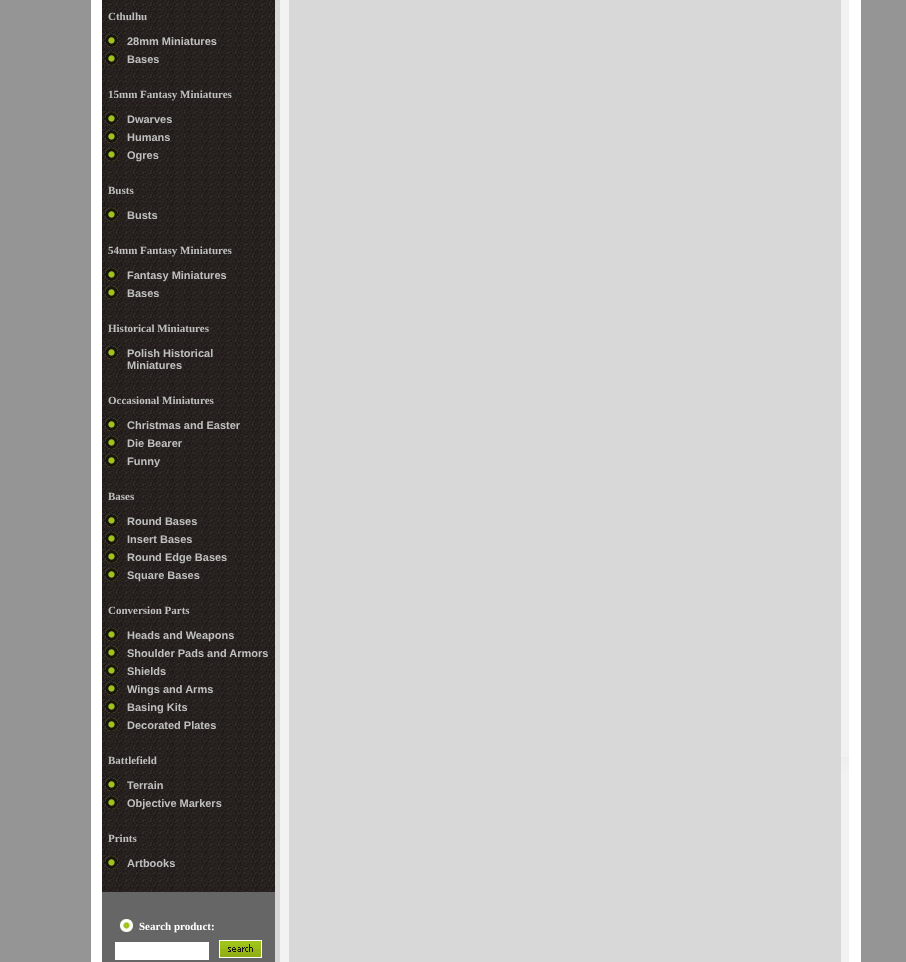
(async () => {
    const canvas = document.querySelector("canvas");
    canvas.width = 906;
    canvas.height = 962;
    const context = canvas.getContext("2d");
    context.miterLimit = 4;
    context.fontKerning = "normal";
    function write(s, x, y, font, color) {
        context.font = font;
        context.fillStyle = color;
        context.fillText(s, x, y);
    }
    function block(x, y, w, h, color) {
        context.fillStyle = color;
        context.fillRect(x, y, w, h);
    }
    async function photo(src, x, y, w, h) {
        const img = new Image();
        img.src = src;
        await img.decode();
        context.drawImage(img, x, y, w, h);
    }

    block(0, 0, 906, 962, "rgb(149, 149, 149)");
    block(91, 0, 11, 962, "rgb(255, 255, 255)");
    await photo("media/1.png", 102, 0, 173, 892);
    write("Cthulhu", 108, 20, "bold 11px Liberation Serif", "rgb(192, 192, 192)");
    await photo("media/2.png", 103, 32, 17, 16);
    write("28mm Miniatures", 127, 45, "bold 11px Liberation Sans", "rgb(192, 192, 192)");
    await photo("media/2.png", 103, 50, 17, 16);
    write("Bases", 127, 63, "bold 11px Liberation Sans", "rgb(192, 192, 192)");
    write("15mm Fantasy Miniatures", 108, 98, "bold 11px Liberation Serif", "rgb(192, 192, 192)");
    await photo("media/2.png", 103, 110, 17, 16);
    write("Dwarves", 127, 123, "bold 11px Liberation Sans", "rgb(192, 192, 192)");
    await photo("media/2.png", 103, 128, 17, 16);
    write("Humans", 127, 141, "bold 11px Liberation Sans", "rgb(192, 192, 192)");
    await photo("media/2.png", 103, 146, 17, 16);
    write("Ogres", 127, 159, "bold 11px Liberation Sans", "rgb(192, 192, 192)");
    write("Busts", 108, 194, "bold 11px Liberation Serif", "rgb(192, 192, 192)");
    await photo("media/2.png", 103, 206, 17, 16);
    write("Busts", 127, 219, "bold 11px Liberation Sans", "rgb(192, 192, 192)");
    write("54mm Fantasy Miniatures", 108, 254, "bold 11px Liberation Serif", "rgb(192, 192, 192)");
    await photo("media/2.png", 103, 266, 17, 16);
    write("Fantasy Miniatures", 127, 279, "bold 11px Liberation Sans", "rgb(192, 192, 192)");
    await photo("media/2.png", 103, 284, 17, 16);
    write("Bases", 127, 297, "bold 11px Liberation Sans", "rgb(192, 192, 192)");
    write("Historical Miniatures", 108, 332, "bold 11px Liberation Serif", "rgb(192, 192, 192)");
    await photo("media/2.png", 103, 344, 17, 16);
    write("Polish Historical", 127, 357, "bold 11px Liberation Sans", "rgb(192, 192, 192)");
    write("Miniatures", 127, 369, "bold 11px Liberation Sans", "rgb(192, 192, 192)");
    write("Occasional Miniatures", 108, 404, "bold 11px Liberation Serif", "rgb(192, 192, 192)");
    await photo("media/2.png", 103, 416, 17, 16);
    write("Christmas and Easter", 127, 429, "bold 11px Liberation Sans", "rgb(192, 192, 192)");
    await photo("media/2.png", 103, 434, 17, 16);
    write("Die Bearer", 127, 447, "bold 11px Liberation Sans", "rgb(192, 192, 192)");
    await photo("media/2.png", 103, 452, 17, 16);
    write("Funny", 127, 465, "bold 11px Liberation Sans", "rgb(192, 192, 192)");
    write("Bases", 108, 500, "bold 11px Liberation Serif", "rgb(192, 192, 192)");
    await photo("media/2.png", 103, 512, 17, 16);
    write("Round Bases", 127, 525, "bold 11px Liberation Sans", "rgb(192, 192, 192)");
    await photo("media/2.png", 103, 530, 17, 16);
    write("Insert Bases", 127, 543, "bold 11px Liberation Sans", "rgb(192, 192, 192)");
    await photo("media/2.png", 103, 548, 17, 16);
    write("Round Edge Bases", 127, 561, "bold 11px Liberation Sans", "rgb(192, 192, 192)");
    await photo("media/2.png", 103, 566, 17, 16);
    write("Square Bases", 127, 579, "bold 11px Liberation Sans", "rgb(192, 192, 192)");
    write("Conversion Parts", 108, 614, "bold 11px Liberation Serif", "rgb(192, 192, 192)");
    await photo("media/2.png", 103, 626, 17, 16);
    write("Heads and Weapons", 127, 639, "bold 11px Liberation Sans", "rgb(192, 192, 192)");
    await photo("media/2.png", 103, 644, 17, 16);
    write("Shoulder Pads and Armors", 127, 657, "bold 11px Liberation Sans", "rgb(192, 192, 192)");
    await photo("media/2.png", 103, 662, 17, 16);
    write("Shields", 127, 675, "bold 11px Liberation Sans", "rgb(192, 192, 192)");
    await photo("media/2.png", 103, 680, 17, 16);
    write("Wings and Arms", 127, 693, "bold 11px Liberation Sans", "rgb(192, 192, 192)");
    await photo("media/2.png", 103, 698, 17, 16);
    write("Basing Kits", 127, 711, "bold 11px Liberation Sans", "rgb(192, 192, 192)");
    await photo("media/2.png", 103, 716, 17, 16);
    write("Decorated Plates", 127, 729, "bold 11px Liberation Sans", "rgb(192, 192, 192)");
    write("Battlefield", 108, 764, "bold 11px Liberation Serif", "rgb(192, 192, 192)");
    await photo("media/2.png", 103, 776, 17, 16);
    write("Terrain", 127, 789, "bold 11px Liberation Sans", "rgb(192, 192, 192)");
    await photo("media/2.png", 103, 794, 17, 16);
    write("Objective Markers", 127, 807, "bold 11px Liberation Sans", "rgb(192, 192, 192)");
    write("Prints", 108, 842, "bold 11px Liberation Serif", "rgb(192, 192, 192)");
    await photo("media/2.png", 103, 854, 17, 16);
    write("Artbooks", 127, 867, "bold 11px Liberation Sans", "rgb(192, 192, 192)");
    block(102, 892, 173, 70, "rgb(102, 102, 102)");
    await photo("media/3.png", 115, 917, 24, 16);
    write("Search product:", 139, 930, "bold 11px Liberation Serif", "rgb(255, 255, 255)");
    block(115, 942, 94, 18, "rgb(255, 255, 255)");
    await photo("media/4.png", 219, 940, 43, 18);
    block(275, 0, 5, 962, "rgb(216, 216, 216)");
    block(280, 0, 9, 962, "rgb(242, 242, 242)");
    block(289, 0, 552, 962, "rgb(216, 216, 216)");
    block(849, 0, 12, 962, "rgb(255, 255, 255)");
    await photo("media/5.png", 841, 0, 8, 962);
})();
